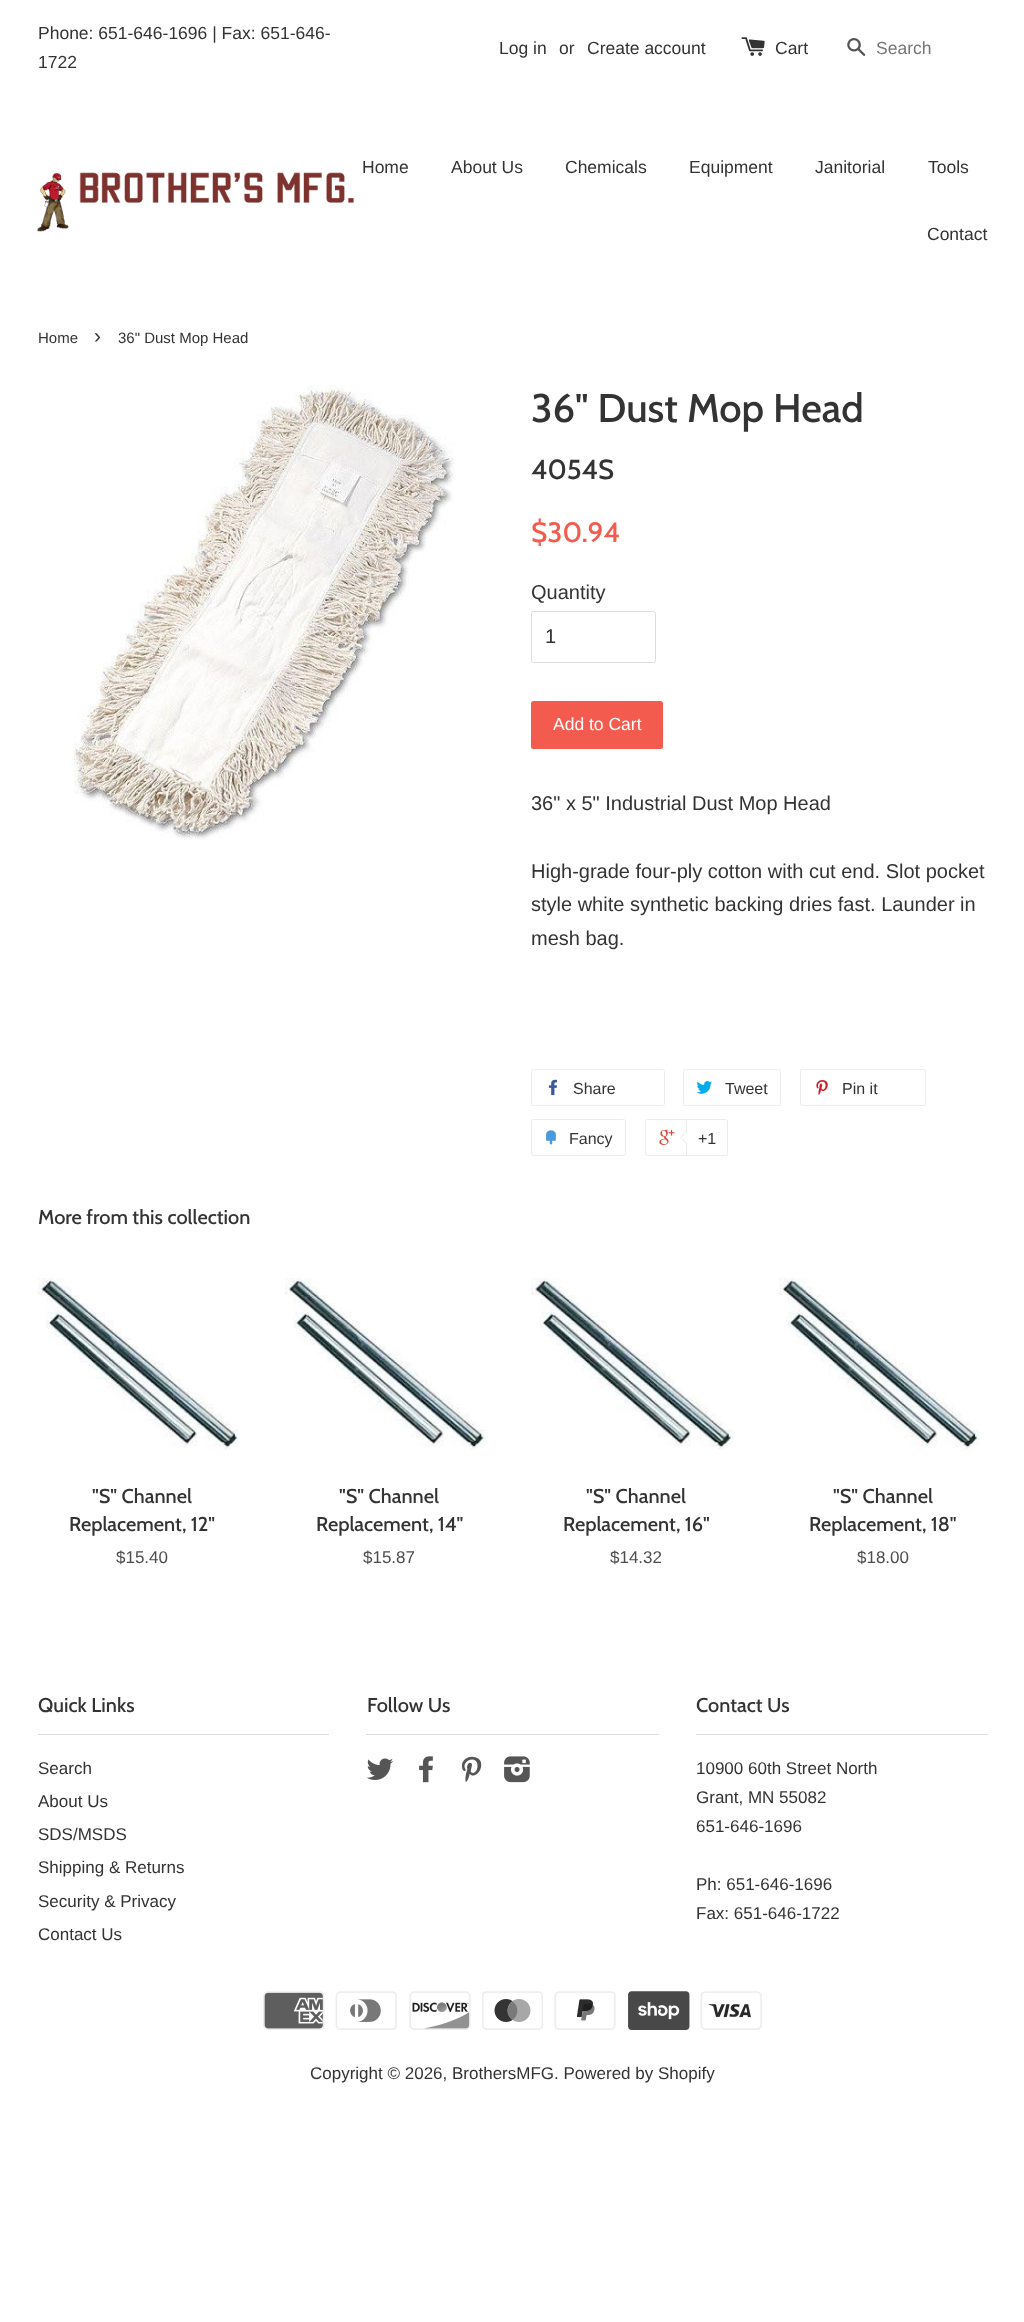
(async () => {
    const canvas = document.querySelector("canvas");
    canvas.width = 1024;
    canvas.height = 2322;
    const context = canvas.getContext("2d");
    context.miterLimit = 4;
    context.fontKerning = "normal";
    function write(s, x, y, font, color) {
        context.font = font;
        context.fillStyle = color;
        context.fillText(s, x, y);
    }
    function block(x, y, w, h, color) {
        context.fillStyle = color;
        context.fillRect(x, y, w, h);
    }
    function card(x, y, w, h, r, color) {
        context.fillStyle = color;
        context.beginPath();
        context.roundRect(x, y, w, h, r);
        context.fill();
    }
    async function photo(src, x, y, w, h) {
        const img = new Image();
        img.src = src;
        await img.decode();
        context.drawImage(img, x, y, w, h);
    }

    block(0, 0, 1024, 2322, "rgb(255, 255, 255)");
    write("Phone: 651-646-1696 | Fax: 651-646-", 38, 39, "17.5px Liberation Sans", "rgb(51, 51, 51)");
    write("1722", 38, 68, "17.5px Liberation Sans", "rgb(51, 51, 51)");
    write("Log in", 499, 54, "17.5px Liberation Sans", "rgb(51, 51, 51)");
    write("or", 559, 54, "17.5px Liberation Sans", "rgb(51, 51, 51)");
    write("Create account", 587, 54, "17.5px Liberation Sans", "rgb(51, 51, 51)");
    await photo("media/1.png", 741, 37, 24, 19);
    write("Cart", 775, 54, "17.5px Liberation Sans", "rgb(51, 51, 51)");
    await photo("media/2.png", 847, 38, 19, 18);
    write("Search", 876, 54, "17.5px Liberation Sans", "rgb(117, 117, 117)");
    await photo("media/3.png", 37, 172, 317, 60);
    write("Home", 362, 173, "17.5px Liberation Sans", "rgb(51, 51, 51)");
    write("About Us", 451, 173, "17.5px Liberation Sans", "rgb(51, 51, 51)");
    write("Chemicals", 565, 173, "17.5px Liberation Sans", "rgb(51, 51, 51)");
    write("Equipment", 689, 173, "17.5px Liberation Sans", "rgb(51, 51, 51)");
    write("Janitorial", 815, 173, "17.5px Liberation Sans", "rgb(51, 51, 51)");
    write("Tools", 928, 173, "17.5px Liberation Sans", "rgb(51, 51, 51)");
    write("Contact", 927, 240, "17.5px Liberation Sans", "rgb(51, 51, 51)");
    write("Home", 38, 343, "15px Liberation Sans", "rgb(51, 51, 51)");
    write("›", 94, 343, "21px Liberation Sans", "rgb(51, 51, 51)");
    write("36\" Dust Mop Head", 118, 343, "15px Liberation Sans", "rgb(51, 51, 51)");
    await photo("media/4.png", 67, 385, 388, 455);
    write("36\" Dust Mop Head", 531, 422, "500 40px Cabin", "rgb(51, 51, 51)");
    write("4054S", 531, 479, "500 27.5px Cabin", "rgb(51, 51, 51)");
    write("$30.94", 531, 542, "500 28px Cabin", "rgb(244, 91, 79)");
    write("Quantity", 531, 599, "20px Liberation Sans", "rgb(51, 51, 51)");
    context.beginPath();
    context.roundRect(531.5, 611.5, 124, 51, 2);
    context.strokeStyle = "rgb(221, 221, 221)";
    context.stroke();
    write("1", 545, 643, "20px Liberation Sans", "rgb(51, 51, 51)");
    card(531, 701, 132, 48, 2.5, "rgb(244, 91, 79)");
    write("Add to Cart", 553, 730, "17.5px Liberation Sans", "rgb(255, 255, 255)");
    write("36\" x 5\" Industrial Dust Mop Head", 531, 810, "20px Liberation Sans", "rgb(51, 51, 51)");
    write("High-grade four-ply cotton with cut end. Slot pocket", 531, 878, "20px Liberation Sans", "rgb(51, 51, 51)");
    write("style white synthetic backing dries fast. Launder in", 531, 911, "20px Liberation Sans", "rgb(51, 51, 51)");
    write("mesh bag.", 531, 945, "20px Liberation Sans", "rgb(51, 51, 51)");
    context.beginPath();
    context.roundRect(531.5, 1069.5, 133, 36, 2);
    context.strokeStyle = "rgb(236, 236, 236)";
    context.stroke();
    await photo("media/5.png", 548, 1079, 10, 17);
    write("Share", 573, 1094, "16px Liberation Sans", "rgb(51, 51, 51)");
    context.beginPath();
    context.roundRect(683.5, 1069.5, 97, 36, 2);
    context.stroke();
    await photo("media/6.png", 696, 1081, 16, 13);
    write("Tweet", 725, 1094, "16px Liberation Sans", "rgb(51, 51, 51)");
    context.beginPath();
    context.roundRect(800.5, 1069.5, 125, 36, 2);
    context.stroke();
    await photo("media/7.png", 816, 1080, 12, 15);
    write("Pin it", 842, 1094, "16px Liberation Sans", "rgb(51, 51, 51)");
    context.beginPath();
    context.roundRect(531.5, 1119.5, 94, 36, 2);
    context.stroke();
    await photo("media/8.png", 546, 1130, 10, 15);
    write("Fancy", 569, 1144, "16px Liberation Sans", "rgb(51, 51, 51)");
    context.beginPath();
    context.roundRect(645.5, 1119.5, 80, 36, 2);
    context.stroke();
    await photo("media/9.png", 659, 1129, 16, 16);
    context.fillStyle = "rgb(255, 255, 255)";
    context.beginPath();
    context.roundRect(686.5, 1119.5, 41, 36, [0, 2, 2, 0]);
    context.fill();
    context.stroke();
    context.fillStyle = "rgb(236, 236, 236)";
    context.beginPath();
    context.moveTo(687.5, 1130);
    context.lineTo(687.5, 1145);
    context.lineTo(680, 1137.5);
    context.closePath();
    context.fill();
    context.fillStyle = "rgb(255, 255, 255)";
    context.beginPath();
    context.moveTo(689, 1130);
    context.lineTo(689, 1145);
    context.lineTo(681, 1137.5);
    context.closePath();
    context.fill();
    write("+1", 698, 1144, "16px Liberation Sans", "rgb(51, 51, 51)");
    write("More from this collection", 38, 1224, "500 20px Cabin", "rgb(51, 51, 51)");
    await photo("media/10.png", 37, 1278, 203, 172);
    write("\"S\" Channel", 92, 1503, "500 20px Cabin", "rgb(51, 51, 51)");
    write("Replacement, 12\"", 69, 1531, "500 20px Cabin", "rgb(51, 51, 51)");
    write("$15.40", 116, 1563, "17px Liberation Sans", "rgb(77, 77, 77)");
    await photo("media/11.png", 285, 1278, 201, 172);
    write("\"S\" Channel", 339, 1503, "500 20px Cabin", "rgb(51, 51, 51)");
    write("Replacement, 14\"", 316, 1531, "500 20px Cabin", "rgb(51, 51, 51)");
    write("$15.87", 363, 1563, "17px Liberation Sans", "rgb(77, 77, 77)");
    await photo("media/12.png", 531, 1278, 202, 172);
    write("\"S\" Channel", 586, 1503, "500 20px Cabin", "rgb(51, 51, 51)");
    write("Replacement, 16\"", 563, 1531, "500 20px Cabin", "rgb(51, 51, 51)");
    write("$14.32", 610, 1563, "17px Liberation Sans", "rgb(77, 77, 77)");
    await photo("media/13.png", 779, 1278, 201, 172);
    write("\"S\" Channel", 833, 1503, "500 20px Cabin", "rgb(51, 51, 51)");
    write("Replacement, 18\"", 809, 1531, "500 20px Cabin", "rgb(51, 51, 51)");
    write("$18.00", 857, 1563, "17px Liberation Sans", "rgb(77, 77, 77)");
    block(38, 1734, 291, 1, "rgb(221, 221, 221)");
    write("Quick Links", 38, 1712, "500 20px Cabin", "rgb(51, 51, 51)");
    write("Search", 38, 1774, "17px Liberation Sans", "rgb(51, 51, 51)");
    write("About Us", 38, 1807, "17px Liberation Sans", "rgb(51, 51, 51)");
    write("SDS/MSDS", 38, 1840, "17px Liberation Sans", "rgb(51, 51, 51)");
    write("Shipping & Returns", 38, 1873, "17px Liberation Sans", "rgb(51, 51, 51)");
    write("Security & Privacy", 38, 1907, "17px Liberation Sans", "rgb(51, 51, 51)");
    write("Contact Us", 38, 1940, "17px Liberation Sans", "rgb(51, 51, 51)");
    block(366, 1734, 293, 1, "rgb(221, 221, 221)");
    write("Follow Us", 367, 1712, "500 20px Cabin", "rgb(51, 51, 51)");
    await photo("media/14.png", 366, 1758, 27, 22);
    await photo("media/15.png", 419, 1756, 14, 27);
    await photo("media/16.png", 461, 1756, 21, 27);
    await photo("media/17.png", 504, 1756, 26, 27);
    block(696, 1734, 292, 1, "rgb(221, 221, 221)");
    write("Contact Us", 696, 1712, "500 20px Cabin", "rgb(51, 51, 51)");
    write("10900 60th Street North", 696, 1774, "17px Liberation Sans", "rgb(51, 51, 51)");
    write("Grant, MN 55082", 696, 1803, "17px Liberation Sans", "rgb(51, 51, 51)");
    write("651-646-1696", 696, 1832, "17px Liberation Sans", "rgb(51, 51, 51)");
    write("Ph: 651-646-1696", 696, 1890, "17px Liberation Sans", "rgb(51, 51, 51)");
    write("Fax: 651-646-1722", 696, 1919, "17px Liberation Sans", "rgb(51, 51, 51)");
    await photo("media/18.png", 263, 1991, 62, 39);
    await photo("media/19.png", 335, 1991, 62, 39);
    await photo("media/20.png", 409, 1991, 62, 39);
    await photo("media/21.png", 482, 1991, 61, 39);
    await photo("media/22.png", 554, 1991, 62, 39);
    await photo("media/23.png", 628, 1991, 62, 39);
    await photo("media/24.png", 700, 1991, 62, 39);
    write("Copyright © 2026, BrothersMFG. Powered by Shopify", 310, 2079, "17px Liberation Sans", "rgb(51, 51, 51)");
})();
